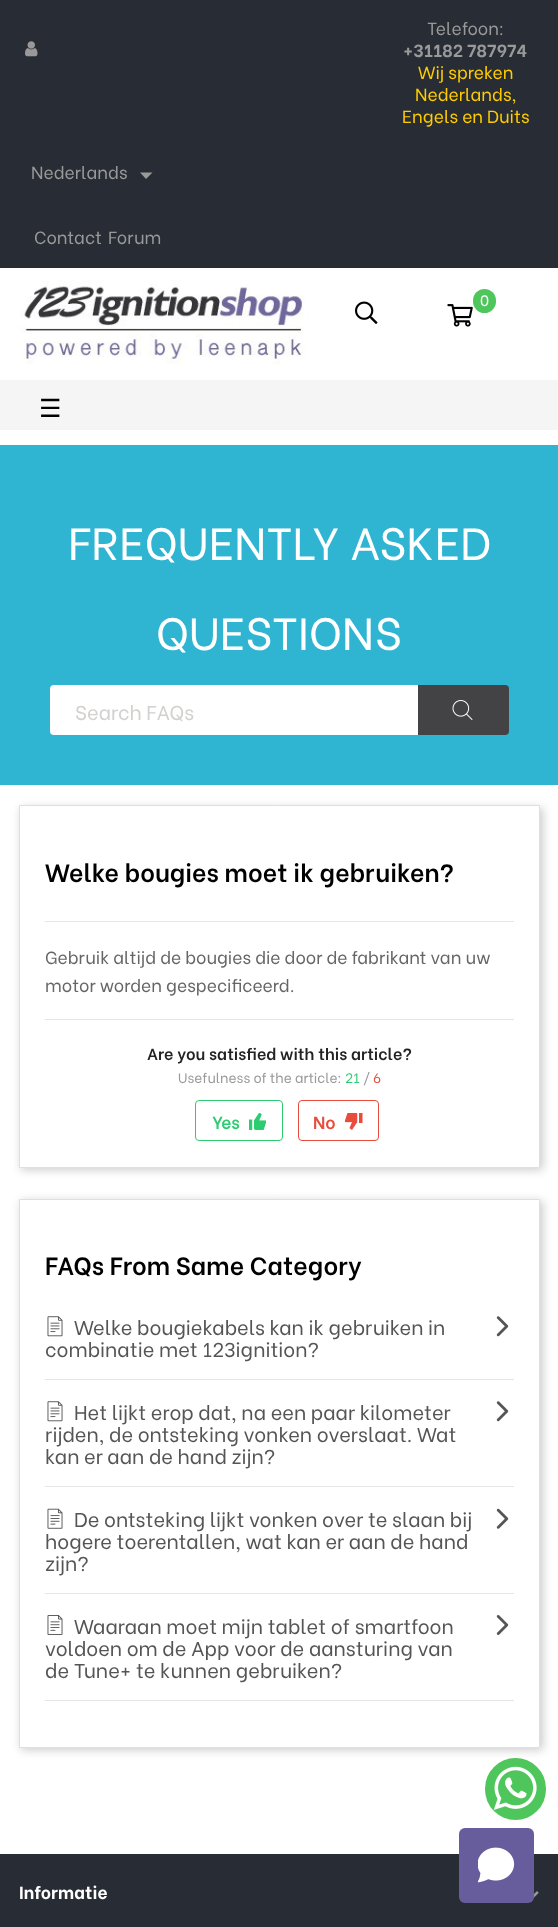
(async () => {
    const canvas = document.querySelector("canvas");
    canvas.width = 558;
    canvas.height = 1927;
    const context = canvas.getContext("2d");
    context.miterLimit = 4;
    context.fontKerning = "normal";
    function write(s, x, y, font, color) {
        context.font = font;
        context.fillStyle = color;
        context.fillText(s, x, y);
    }
    function block(x, y, w, h, color) {
        context.fillStyle = color;
        context.fillRect(x, y, w, h);
    }
    function card(x, y, w, h, r, color) {
        context.fillStyle = color;
        context.beginPath();
        context.roundRect(x, y, w, h, r);
        context.fill();
    }
    async function photo(src, x, y, w, h) {
        const img = new Image();
        img.src = src;
        await img.decode();
        context.drawImage(img, x, y, w, h);
    }

    block(0, 0, 558, 1927, "rgb(255, 255, 255)");
    block(0, 0, 558, 268, "rgb(40, 45, 53)");
    await photo("media/1.png", 25, 41, 13, 16);
    write("Telefoon:", 427, 35, "17.5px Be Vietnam", "rgb(153, 153, 153)");
    write("+31182 787974", 403, 57, "bold 17.5px Be Vietnam", "rgb(153, 153, 153)");
    write("Wij spreken", 418, 79, "17.5px Be Vietnam", "rgb(255, 204, 0)");
    write("Nederlands,", 415, 101, "17.5px Be Vietnam", "rgb(255, 204, 0)");
    write("Engels en Duits", 402, 123, "17.5px Be Vietnam", "rgb(255, 204, 0)");
    write("Nederlands", 31, 179, "17.5px Be Vietnam", "rgb(153, 153, 153)");
    context.beginPath();
    context.moveTo(140, 172.5);
    context.lineTo(152.5, 172.5);
    context.lineTo(146, 179);
    context.closePath();
    context.fill();
    write("Contact", 34, 244, "17.5px Be Vietnam", "rgb(153, 153, 153)");
    write("Forum", 108, 244, "17.5px Be Vietnam", "rgb(153, 153, 153)");
    await photo("media/2.png", 20, 280, 288, 85);
    await photo("media/3.png", 355, 301, 23, 23);
    card(473, 289, 23, 24, 11.5, "rgb(79, 198, 91)");
    write("0", 480, 306, "15px Be Vietnam", "rgb(255, 255, 255)");
    await photo("media/4.png", 447, 304, 26, 23);
    block(0, 380, 558, 50, "rgb(245, 245, 245)");
    write("☰", 39, 417, "25px DejaVu Sans", "rgb(0, 0, 0)");
    block(0, 445, 558, 340, "rgb(47, 181, 210)");
    write("FREQUENTLY ASKED", 68, 560, "45px Be Vietnam", "rgb(255, 255, 255)");
    write("QUESTIONS", 156, 650, "45px Be Vietnam", "rgb(255, 255, 255)");
    context.beginPath();
    context.roundRect(50, 685, 368, 50, [4, 0, 0, 4]);
    context.fill();
    write("Search FAQs", 75, 720, "20px Be Vietnam", "rgb(210, 209, 207)");
    context.fillStyle = "rgb(67, 67, 69)";
    context.beginPath();
    context.roundRect(418, 685, 91, 50, [0, 4, 4, 0]);
    context.fill();
    await photo("media/5.png", 452, 700, 21, 20);
    context.fillStyle = "rgba(0, 0, 0, 0.2)";
    context.filter = "blur(5px)";
    context.beginPath();
    context.rect(21, 808, 522, 362);
    context.fill();
    context.filter = "none";
    context.fillStyle = "rgb(255, 255, 255)";
    context.beginPath();
    context.rect(19.5, 805.5, 520, 362);
    context.fill();
    context.strokeStyle = "rgb(223, 223, 223)";
    context.stroke();
    write("Welke bougies moet ik gebruiken?", 45, 882, "600 25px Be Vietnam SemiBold", "rgb(0, 0, 0)");
    block(45, 921, 469, 1, "rgb(230, 230, 230)");
    write("Gebruik altijd de bougies die door de fabrikant van uw", 45, 964, "17.5px Be Vietnam", "rgb(102, 102, 102)");
    write("motor worden gespecificeerd.", 45, 992, "17.5px Be Vietnam", "rgb(102, 102, 102)");
    block(45, 1019, 469, 1, "rgb(230, 230, 230)");
    write("Are you satisfied with this article?", 147, 1060, "600 16.25px Be Vietnam SemiBold", "rgb(35, 35, 35)");
    write("Usefulness of the article:", 178, 1083, "13.75px Be Vietnam", "rgb(153, 153, 153)");
    write("21", 345, 1083, "13.75px Be Vietnam", "rgb(46, 204, 113)");
    write("/", 363, 1083, "13.75px Be Vietnam", "rgb(153, 153, 153)");
    write("6", 373, 1083, "13.75px Be Vietnam", "rgb(231, 76, 60)");
    context.beginPath();
    context.roundRect(195.5, 1100.5, 87, 40, 3.5);
    context.strokeStyle = "rgb(46, 204, 113)";
    context.stroke();
    write("Yes", 212, 1129, "600 17.5px Be Vietnam SemiBold", "rgb(46, 204, 113)");
    await photo("media/6.png", 249, 1113, 17, 17);
    context.beginPath();
    context.roundRect(298.5, 1100.5, 80, 40, 3.5);
    context.strokeStyle = "rgb(231, 76, 60)";
    context.stroke();
    write("No", 313, 1129, "600 17.5px Be Vietnam SemiBold", "rgb(231, 76, 60)");
    await photo("media/7.png", 345, 1113, 18, 17);
    context.fillStyle = "rgba(0, 0, 0, 0.2)";
    context.filter = "blur(5px)";
    context.beginPath();
    context.rect(21, 1201, 522, 549);
    context.fill();
    context.filter = "none";
    context.fillStyle = "rgb(255, 255, 255)";
    context.beginPath();
    context.rect(19.5, 1199.5, 520, 548);
    context.fill();
    context.strokeStyle = "rgb(223, 223, 223)";
    context.stroke();
    write("FAQs From Same Category", 45, 1275, "600 25px Be Vietnam SemiBold", "rgb(0, 0, 0)");
    await photo("media/8.png", 47, 1316, 16, 21);
    write("Welke bougiekabels kan ik gebruiken in", 74, 1335, "20px Be Vietnam", "rgb(85, 85, 85)");
    await photo("media/9.png", 496, 1316, 13, 21);
    write("combinatie met 123ignition?", 45, 1357, "20px Be Vietnam", "rgb(85, 85, 85)");
    block(45, 1379, 469, 1, "rgb(230, 230, 230)");
    await photo("media/8.png", 47, 1401, 16, 21);
    write("Het lijkt erop dat, na een paar kilometer", 74, 1420, "20px Be Vietnam", "rgb(85, 85, 85)");
    await photo("media/9.png", 496, 1401, 13, 21);
    write("rijden, de ontsteking vonken overslaat. Wat", 45, 1442, "20px Be Vietnam", "rgb(85, 85, 85)");
    write("kan er aan de hand zijn?", 45, 1464, "20px Be Vietnam", "rgb(85, 85, 85)");
    block(45, 1486, 469, 1, "rgb(230, 230, 230)");
    await photo("media/10.png", 47, 1508, 16, 21);
    write("De ontsteking lijkt vonken over te slaan bij", 74, 1527, "20px Be Vietnam", "rgb(85, 85, 85)");
    await photo("media/11.png", 496, 1508, 13, 21);
    write("hogere toerentallen, wat kan er aan de hand", 45, 1549, "20px Be Vietnam", "rgb(85, 85, 85)");
    write("zijn?", 45, 1571, "20px Be Vietnam", "rgb(85, 85, 85)");
    block(45, 1593, 469, 1, "rgb(230, 230, 230)");
    await photo("media/12.png", 47, 1615, 16, 20);
    write("Waaraan moet mijn tablet of smartfoon", 74, 1634, "20px Be Vietnam", "rgb(85, 85, 85)");
    await photo("media/13.png", 496, 1615, 13, 20);
    write("voldoen om de App voor de aansturing van", 45, 1656, "20px Be Vietnam", "rgb(85, 85, 85)");
    write("de Tune+ te kunnen gebruiken?", 45, 1678, "20px Be Vietnam", "rgb(85, 85, 85)");
    block(45, 1700, 469, 1, "rgb(230, 230, 230)");
    card(485, 1758, 61, 62, 30.5, "rgb(79, 198, 91)");
    await photo("media/14.png", 493, 1766, 44, 44);
    block(0, 1854, 558, 73, "rgb(40, 45, 53)");
    write("Informatie", 19, 1899, "bold 17.5px Be Vietnam", "rgb(255, 255, 255)");
    await photo("media/15.png", 533, 1891, 6, 8);
    card(459, 1828, 75, 75, 6, "rgb(103, 93, 156)");
    await photo("media/16.png", 478, 1847, 37, 36);
})();
